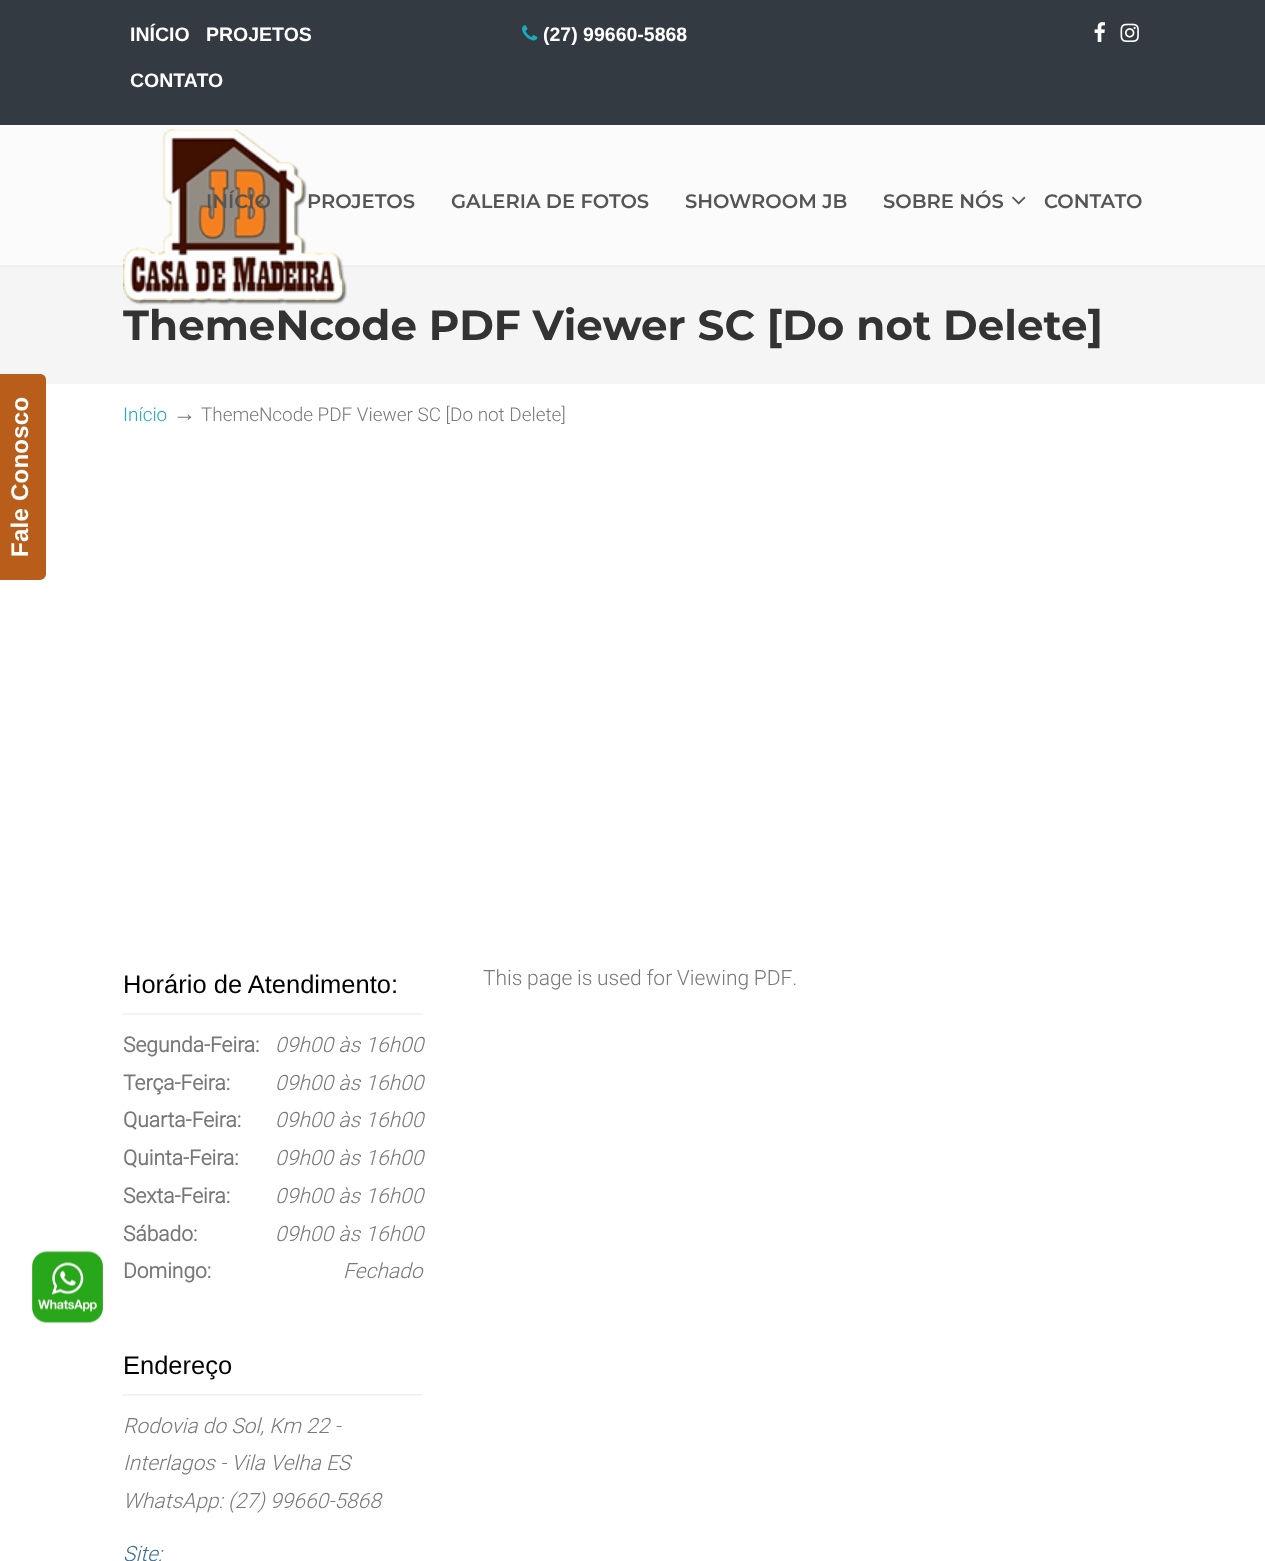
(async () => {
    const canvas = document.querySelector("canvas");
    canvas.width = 1265;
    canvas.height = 1561;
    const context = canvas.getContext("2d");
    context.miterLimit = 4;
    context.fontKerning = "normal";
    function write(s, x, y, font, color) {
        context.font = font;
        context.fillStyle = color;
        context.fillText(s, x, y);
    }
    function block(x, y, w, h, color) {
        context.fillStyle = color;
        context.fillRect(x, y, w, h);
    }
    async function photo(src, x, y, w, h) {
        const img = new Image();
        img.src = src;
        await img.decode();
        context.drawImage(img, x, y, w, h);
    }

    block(0, 0, 1265, 1561, "rgb(251, 251, 251)");
    block(0, 267, 1265, 117, "rgb(245, 245, 245)");
    block(0, 384, 1265, 1177, "rgb(255, 255, 255)");
    context.fillStyle = "rgb(184, 94, 26)";
    context.beginPath();
    context.moveTo(-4, 580);
    context.lineTo(-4, 374);
    context.lineTo(40, 374);
    context.bezierCurveTo(43, 374, 46, 376, 46, 380);
    context.lineTo(46, 574);
    context.bezierCurveTo(46, 577, 43, 580, 40, 580);
    context.closePath();
    context.fill();
    context.letterSpacing = "0.25px";
    context.font = "bold 24px Liberation Sans";
    context.fillStyle = "rgb(255, 255, 255)";
    context.save();
    context.translate(28, 557);
    context.rotate(-90 * Math.PI / 180);
    context.fillText("Fale Conosco", 0, 0);
    context.restore();
    block(0, 0, 1265, 125, "rgb(52, 58, 65)");
    context.letterSpacing = "0px";
    write("INÍCIO", 130, 41, "bold 19.5px Liberation Sans", "rgb(255, 255, 255)");
    write("PROJETOS", 206, 41, "bold 19.5px Liberation Sans", "rgb(255, 255, 255)");
    write("CONTATO", 130, 87, "bold 19.5px Liberation Sans", "rgb(255, 255, 255)");
    await photo("media/1.png", 522, 25, 16, 16);
    write("(27) 99660-5868", 543, 41, "bold 19.5px Liberation Sans", "rgb(255, 255, 255)");
    await photo("media/2.png", 1094, 22, 11, 20);
    await photo("media/3.png", 1120, 23, 19, 19);
    await photo("media/6.png", 0, 265, 1265, 2);
    await photo("media/4.png", 123, 129, 224, 176);
    write("INÍCIO", 206, 208, "600 19.5px Montserrat", "rgb(85, 85, 85)");
    write("PROJETOS", 307, 208, "600 19.5px Montserrat", "rgb(85, 85, 85)");
    write("GALERIA DE FOTOS", 451, 208, "600 19.5px Montserrat", "rgb(85, 85, 85)");
    write("SHOWROOM JB", 685, 208, "600 19.5px Montserrat", "rgb(85, 85, 85)");
    write("SOBRE NÓS", 883, 208, "600 19.5px Montserrat", "rgb(85, 85, 85)");
    await photo("media/5.png", 1012, 196, 14, 9);
    write("CONTATO", 1044, 208, "600 19.5px Montserrat", "rgb(85, 85, 85)");
    write("ThemeNcode PDF Viewer SC [Do not Delete]", 123, 340, "bold 42px Montserrat", "rgb(51, 51, 51)");
    write("Início", 123, 421, "300 18.9px Roboto", "rgb(26, 170, 186)");
    write("→", 173, 421, "23px Liberation Serif", "rgb(120, 120, 120)");
    write("ThemeNcode PDF Viewer SC [Do not Delete]", 201, 421, "300 18.9px Roboto", "rgb(120, 120, 120)");
    await photo("media/7.png", 123, 1013, 300, 2);
    write("Horário de Atendimento:", 123, 993, "25.5px Liberation Sans", "rgb(0, 0, 0)");
    write("Segunda-Feira:", 123, 1052, "bold 21px Roboto", "rgb(120, 120, 120)");
    write("Terça-Feira:", 123, 1090, "bold 21px Roboto", "rgb(120, 120, 120)");
    write("Quarta-Feira:", 123, 1127, "bold 21px Roboto", "rgb(120, 120, 120)");
    write("Quinta-Feira:", 123, 1165, "bold 21px Roboto", "rgb(120, 120, 120)");
    write("Sexta-Feira:", 123, 1203, "bold 21px Roboto", "rgb(120, 120, 120)");
    write("Sábado:", 123, 1241, "bold 21px Roboto", "rgb(120, 120, 120)");
    write("Domingo:", 123, 1278, "bold 21px Roboto", "rgb(120, 120, 120)");
    write("09h00 às 16h00", 275, 1052, "italic 300 21px Roboto", "rgb(120, 120, 120)");
    write("09h00 às 16h00", 275, 1090, "italic 300 21px Roboto", "rgb(120, 120, 120)");
    write("09h00 às 16h00", 275, 1127, "italic 300 21px Roboto", "rgb(120, 120, 120)");
    write("09h00 às 16h00", 275, 1165, "italic 300 21px Roboto", "rgb(120, 120, 120)");
    write("09h00 às 16h00", 275, 1203, "italic 300 21px Roboto", "rgb(120, 120, 120)");
    write("09h00 às 16h00", 275, 1241, "italic 300 21px Roboto", "rgb(120, 120, 120)");
    write("Fechado", 343, 1278, "italic 300 21px Roboto", "rgb(120, 120, 120)");
    await photo("media/7.png", 123, 1394, 300, 2);
    write("Endereço", 123, 1374, "25.5px Liberation Sans", "rgb(0, 0, 0)");
    write("Rodovia do Sol, Km 22 -", 123, 1433, "italic 300 21px Roboto", "rgb(120, 120, 120)");
    write("Interlagos - Vila Velha ES", 123, 1470, "italic 300 21px Roboto", "rgb(120, 120, 120)");
    write("WhatsApp: (27) 99660-5868", 123, 1508, "italic 300 21px Roboto", "rgb(120, 120, 120)");
    write("Site:", 123, 1561, "italic 300 21px Roboto", "rgb(61, 110, 151)");
    context.wordSpacing = "-0.5px";
    write("This page is used for Viewing PDF.", 483, 985, "300 21px Roboto", "rgb(120, 120, 120)");
    await photo("media/8.png", 32, 1251, 71, 72);
})();
